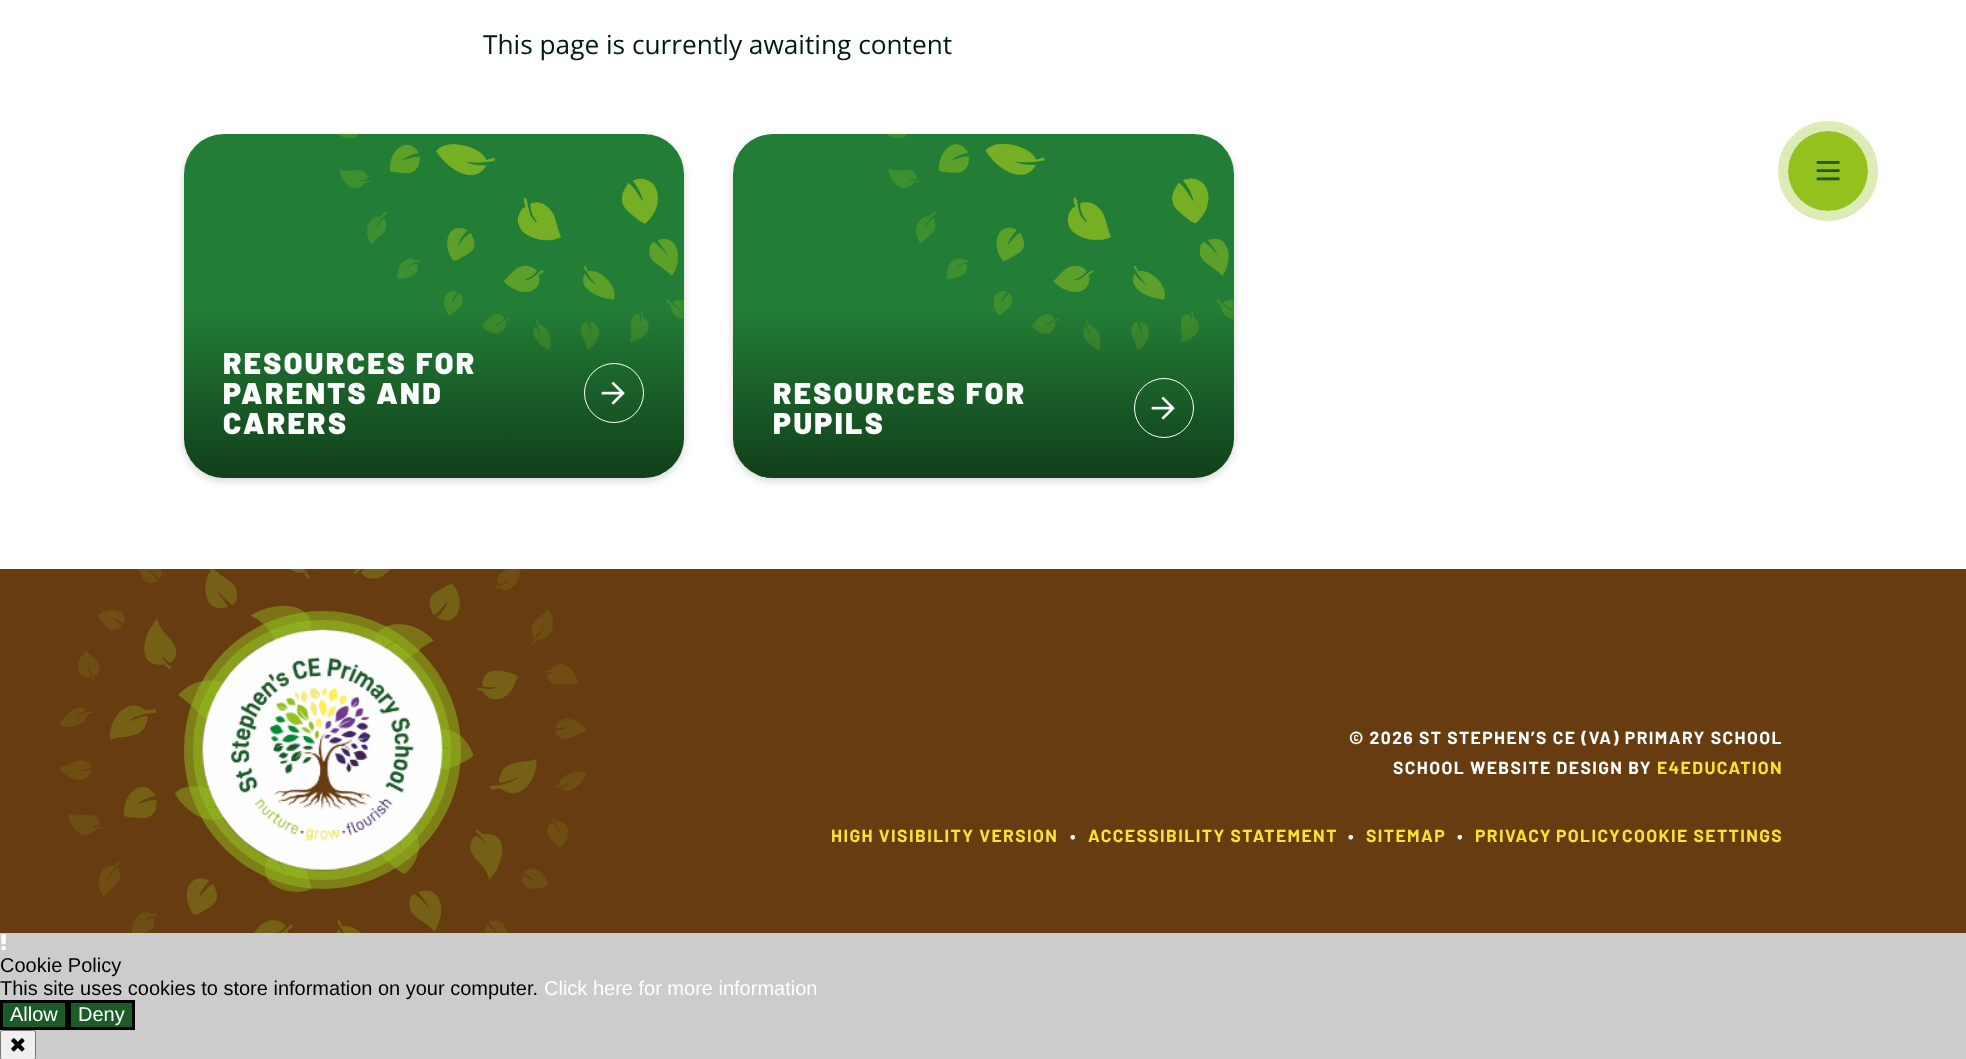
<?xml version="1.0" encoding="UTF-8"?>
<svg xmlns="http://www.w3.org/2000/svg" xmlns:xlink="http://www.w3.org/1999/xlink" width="1966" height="1059">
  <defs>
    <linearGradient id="g1" gradientUnits="userSpaceOnUse" x1="434" y1="134" x2="434" y2="478"><stop offset="0" stop-color="#000000" stop-opacity="0" /><stop offset="0.5" stop-color="#000000" stop-opacity="0" /><stop offset="1" stop-color="#000000" stop-opacity="0.5" /></linearGradient>
    <linearGradient id="g2" gradientUnits="userSpaceOnUse" x1="983" y1="134" x2="983" y2="478"><stop offset="0" stop-color="#000000" stop-opacity="0" /><stop offset="0.5" stop-color="#000000" stop-opacity="0" /><stop offset="1" stop-color="#000000" stop-opacity="0.5" /></linearGradient>
  </defs>
  <rect width="100%" height="100%" fill="#cccccc" />
  <rect width="1966" height="569" fill="#ffffff" />
  <rect x="184" y="138" width="500" height="343" rx="40" fill="#000000" fill-opacity="0.16" filter="blur(4px)" />
  <rect x="184" y="134" width="500" height="344" rx="40" fill="#227e36" />
  <image x="337" y="133" width="347" height="217" xlink:href="image1.png" />
  <rect x="184" y="134" width="500" height="344" rx="40" fill="url(#g1)" />
  <circle cx="614" cy="393" r="29.5" fill="none" stroke="#ffffff" />
  <image x="601" y="381" width="24" height="24" xlink:href="image2.png" />
  <rect x="733" y="138" width="501" height="343" rx="40" fill="#000000" fill-opacity="0.16" filter="blur(4px)" />
  <rect x="733" y="134" width="501" height="344" rx="40" fill="#227e36" />
  <image x="886" y="133" width="348" height="218" xlink:href="image3.png" />
  <rect x="733" y="134" width="501" height="344" rx="40" fill="url(#g2)" />
  <circle cx="1164" cy="408" r="29.5" fill="none" stroke="#ffffff" />
  <image x="1151" y="396" width="24" height="24" xlink:href="image4.png" />
  <circle cx="1828" cy="171" r="45" fill="none" stroke="#ddebb7" stroke-width="10" />
  <circle cx="1828" cy="171" r="40" fill="#95c11f" />
  <image x="1816" y="161" width="24" height="20" xlink:href="image5.png" />
  <rect y="569" width="1966" height="364" fill="#683c11" />
  <rect x="193.5" y="620.5" width="258" height="259" rx="129" fill="none" stroke="#7f7f18" stroke-width="19" />
  <image x="59" y="569" width="527" height="364" xlink:href="image6.png" />
  <image x="202" y="629" width="241" height="241" xlink:href="image7.png" />
  <rect x="197.5" y="624.5" width="249" height="251" rx="124.5" fill="none" stroke="#95c11f" stroke-opacity="0.5" stroke-width="9" />
  <image x="1" y="934" width="5" height="16" xlink:href="image8.png" />
  <rect x="1.5" y="1001.5" width="65" height="27" fill="#1a5b28" stroke="#000000" stroke-width="3" />
  <rect x="69.5" y="1001.5" width="64" height="27" fill="#1a5b28" stroke="#000000" stroke-width="3" />
  <rect x="0.5" y="1030.5" width="35" height="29" rx="2" fill="#efefef" stroke="#767676" />
  <image x="11" y="1038" width="14" height="14" xlink:href="image9.png" />
  <text x="483" y="54" style="font-family: Open Sans; font-size: 26.25px; fill: #001a0c">This page is currently awaiting content</text>
  <text x="223" y="374" style="font-family: Barlow; font-size: 30px; font-weight: 900; letter-spacing: 2.4px; fill: #ffffff">RESOURCES FOR</text>
  <text x="223" y="404" style="font-family: Barlow; font-size: 30px; font-weight: 900; letter-spacing: 2.4px; fill: #ffffff">PARENTS AND</text>
  <text x="223" y="434" style="font-family: Barlow; font-size: 30px; font-weight: 900; letter-spacing: 2.4px; fill: #ffffff">CARERS</text>
  <text x="773" y="404" style="font-family: Barlow; font-size: 30px; font-weight: 900; letter-spacing: 2.4px; fill: #ffffff">RESOURCES FOR</text>
  <text x="773" y="434" style="font-family: Barlow; font-size: 30px; font-weight: 900; letter-spacing: 2.4px; fill: #ffffff">PUPILS</text>
  <text x="1349" y="744" style="font-family: Barlow; font-size: 17.5px; font-weight: bold; letter-spacing: 1.4px; fill: #ffffff">© 2026 ST STEPHEN’S CE (VA) PRIMARY SCHOOL</text>
  <text x="1393" y="774" style="font-family: Barlow; font-size: 17.5px; font-weight: bold; letter-spacing: 1.4px; fill: #ffffff">SCHOOL WEBSITE DESIGN BY</text>
  <text x="1657" y="774" style="font-family: Barlow; font-size: 17.5px; font-weight: bold; letter-spacing: 1.4px; fill: #f7e432">E4EDUCATION</text>
  <text x="831" y="842" style="font-family: Barlow; font-size: 17.5px; font-weight: bold; letter-spacing: 1.4px; fill: #f7e432">HIGH VISIBILITY VERSION</text>
  <text x="1070" y="842" style="font-family: Barlow; font-size: 17.5px; font-weight: bold; letter-spacing: 1.4px; fill: #ffffff">•</text>
  <text x="1088" y="842" style="font-family: Barlow; font-size: 17.5px; font-weight: bold; letter-spacing: 1.4px; fill: #f7e432">ACCESSIBILITY STATEMENT</text>
  <text x="1348" y="842" style="font-family: Barlow; font-size: 17.5px; font-weight: bold; letter-spacing: 1.4px; fill: #ffffff">•</text>
  <text x="1366" y="842" style="font-family: Barlow; font-size: 17.5px; font-weight: bold; letter-spacing: 1.4px; fill: #f7e432">SITEMAP</text>
  <text x="1457" y="842" style="font-family: Barlow; font-size: 17.5px; font-weight: bold; letter-spacing: 1.4px; fill: #ffffff">•</text>
  <text x="1475" y="842" word-spacing="-1" style="font-family: Barlow; font-size: 17.5px; font-weight: bold; letter-spacing: 1.4px; fill: #f7e432">PRIVACY POLICY</text>
  <text x="1622" y="842" style="font-family: Barlow; font-size: 17.5px; font-weight: bold; letter-spacing: 1.4px; fill: #f7e432">COOKIE SETTINGS</text>
  <text x="0" y="972" style="font-family: Liberation Sans; font-size: 20px; fill: #000000">Cookie Policy</text>
  <text x="0" y="995" style="font-family: Liberation Sans; font-size: 20px; fill: #000000">This site uses cookies to store information on your computer.</text>
  <text x="544" y="995" style="font-family: Liberation Sans; font-size: 20px; fill: #ffffff">Click here for more information</text>
  <text x="10" y="1021" style="font-family: Liberation Sans; font-size: 20px; fill: #ffffff">Allow</text>
  <text x="78" y="1021" style="font-family: Liberation Sans; font-size: 20px; fill: #ffffff">Deny</text>
</svg>
